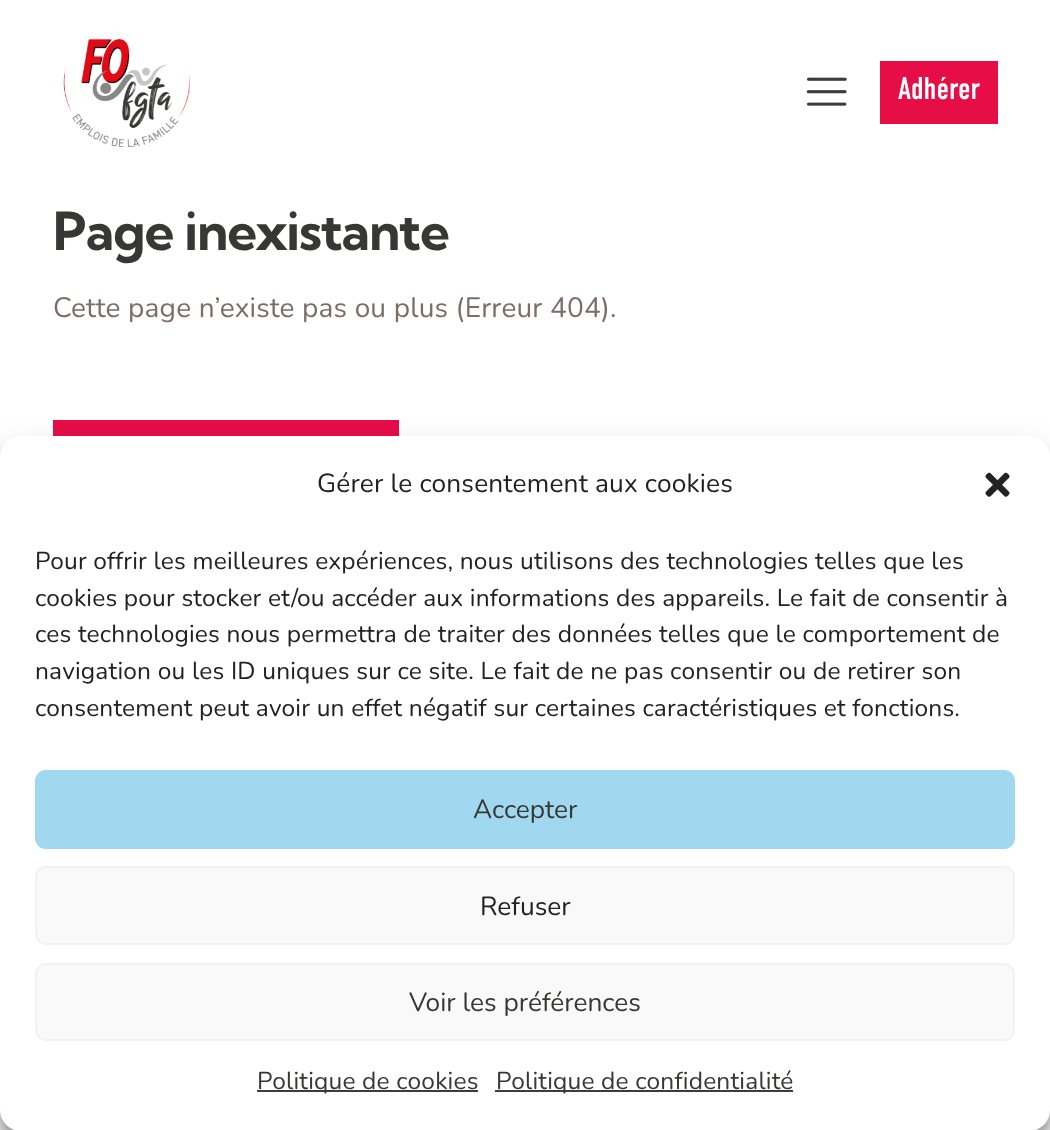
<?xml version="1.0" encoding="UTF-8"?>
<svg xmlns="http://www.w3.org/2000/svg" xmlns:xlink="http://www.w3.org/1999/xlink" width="1050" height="1130">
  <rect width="100%" height="100%" fill="#ffffff" />
  <image x="63" y="39" width="127" height="108" xlink:href="image1.png" />
  <image x="806" y="77" width="41" height="29" xlink:href="image2.png" />
  <rect x="880" y="61" width="118" height="63" fill="#e70e48" />
  <rect x="53" y="420" width="346" height="16" fill="#e70e48" />
  <rect y="1110" width="1050" height="20" fill="#f2f2f2" />
  <rect y="446" width="1050" height="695" rx="21" fill="#000000" fill-opacity="0.23" filter="blur(5px)" />
  <rect y="453" width="1050" height="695" rx="21" fill="#000000" fill-opacity="0.19" filter="blur(17.5px)" />
  <rect y="436" width="1050" height="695" rx="21" fill="#ffffff" />
  <image x="985" y="472" width="25" height="25" xlink:href="image3.png" />
  <rect x="36" y="771" width="978" height="77" rx="10" fill="#9fd8ef" stroke="#9fd8ef" stroke-width="2" />
  <rect x="36" y="867" width="978" height="77" rx="10" fill="#f9f9f9" stroke="#f2f2f2" stroke-width="2" />
  <rect x="36" y="964" width="978" height="76" rx="10" fill="#f9f9f9" stroke="#f2f2f2" stroke-width="2" />
  <rect x="257" y="1090" width="221" height="2" fill="#3c3c3b" />
  <rect x="495" y="1090" width="298" height="2" fill="#3c3c3b" />
  <text x="898" y="99" style="font-family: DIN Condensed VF; font-size: 31.5px; fill: #ffffff">Adhérer</text>
  <text x="53" y="250" style="font-family: Kumbh Sans; font-size: 52.5px; font-weight: bold; letter-spacing: -1px; fill: #373736">Page inexistante</text>
  <text x="53" y="317" style="font-family: Nunito; font-size: 28px; letter-spacing: 0.18px; fill: #7c6d66">Cette page n’existe pas ou plus (Erreur 404).</text>
  <text x="317" y="492" style="font-family: Nunito; font-size: 26.25px; letter-spacing: 0.18px; fill: #222222">Gérer le consentement aux cookies</text>
  <text x="35" y="569" style="font-family: Nunito; font-size: 24.5px; letter-spacing: 0.18px; fill: #222222">Pour offrir les meilleures expériences, nous utilisons des technologies telles que les</text>
  <text x="35" y="606" style="font-family: Nunito; font-size: 24.5px; letter-spacing: 0.18px; fill: #222222">cookies pour stocker et/ou accéder aux informations des appareils. Le fait de consentir à</text>
  <text x="35" y="642" style="font-family: Nunito; font-size: 24.5px; letter-spacing: 0.18px; fill: #222222">ces technologies nous permettra de traiter des données telles que le comportement de</text>
  <text x="35" y="679" style="font-family: Nunito; font-size: 24.5px; letter-spacing: 0.18px; fill: #222222">navigation ou les ID uniques sur ce site. Le fait de ne pas consentir ou de retirer son</text>
  <text x="35" y="716" style="font-family: Nunito; font-size: 24.5px; letter-spacing: 0.18px; fill: #222222">consentement peut avoir un effet négatif sur certaines caractéristiques et fonctions.</text>
  <text x="473" y="818" style="font-family: Nunito; font-size: 26.25px; fill: #373736">Accepter</text>
  <text x="480" y="915" style="font-family: Nunito; font-size: 26.25px; fill: #222222">Refuser</text>
  <text x="409" y="1011" style="font-family: Nunito; font-size: 26.25px; fill: #373736">Voir les préférences</text>
  <text x="257" y="1089" style="font-family: Nunito; font-size: 24.5px; letter-spacing: 0.18px; fill: #373736">Politique de cookies</text>
  <text x="496" y="1089" style="font-family: Nunito; font-size: 24.5px; letter-spacing: 0.18px; fill: #373736">Politique de confidentialité</text>
</svg>
